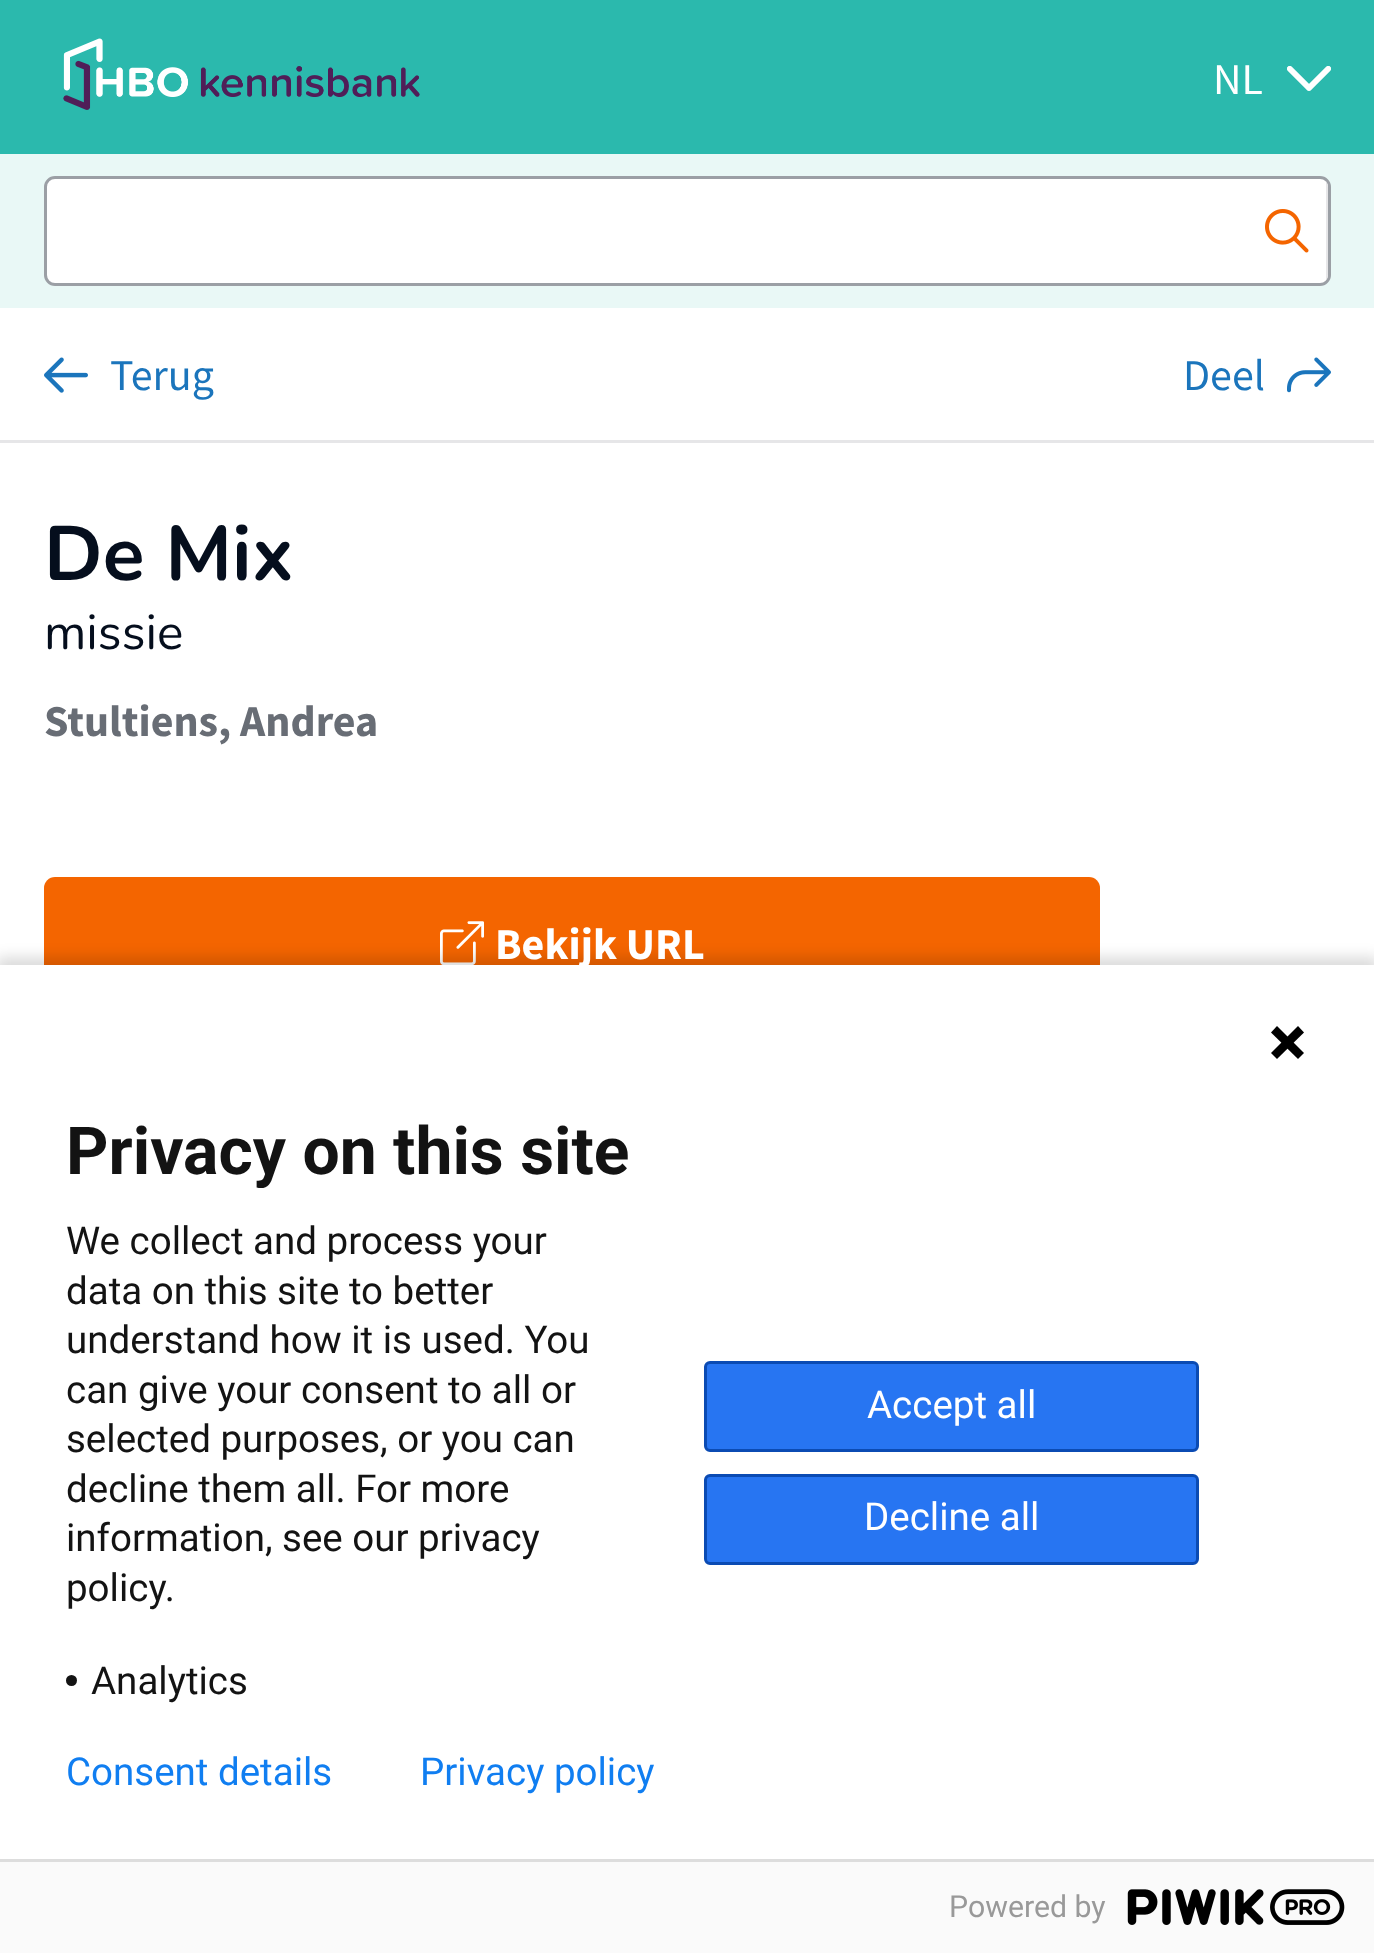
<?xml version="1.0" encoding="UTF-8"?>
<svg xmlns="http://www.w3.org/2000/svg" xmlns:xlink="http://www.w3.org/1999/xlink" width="1374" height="1953">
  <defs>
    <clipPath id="clip1"><rect x="47" y="179" width="1281" height="104" rx="8" /></clipPath>
  </defs>
  <rect width="100%" height="100%" fill="#ffffff" />
  <rect width="1374" height="154" fill="#2bb9ad" />
  <image x="63" y="38" width="357" height="72" xlink:href="image1.png" />
  <image x="1287" y="66" width="44" height="25" xlink:href="image2.png" />
  <image x="1287" y="66" width="44" height="25" xlink:href="image3.png" />
  <rect y="154" width="1374" height="154" fill="#e9f8f6" />
  <rect x="45.5" y="177.5" width="1284" height="107" rx="9.5" fill="#ffffff" stroke="#9b9fa5" stroke-width="3" />
  <g clip-path="url(#clip1)">
    <rect x="1326" y="179" width="2" height="104" fill="#e6e6e8" />
  </g>
  <image x="1265" y="209" width="44" height="44" xlink:href="image4.png" />
  <rect y="440" width="1374" height="3" fill="#e6e6e8" />
  <image x="44" y="357" width="44" height="36" xlink:href="image5.png" />
  <image x="1287" y="357" width="44" height="36" xlink:href="image6.png" />
  <rect x="44" y="877" width="1056" height="132" rx="11" fill="#f46500" />
  <image x="440" y="921" width="44" height="44" xlink:href="image7.png" />
  <rect x="-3" y="957" width="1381" height="996" fill="#000000" fill-opacity="0.14" filter="blur(7px)" />
  <rect y="965" width="1374" height="894" fill="#ffffff" />
  <path d="M 1271 1032.5 l 6 -6.5 l 27 27 l -6 6 l -27 -26.5" fill="#000000" />
  <path d="M 1298 1026 l 6 6.5 l -27 26.5 l -6 -6 l 27 -27" fill="#000000" />
  <circle cx="71.5" cy="1680.5" r="5.5" fill="#131313" />
  <rect x="705.5" y="1362.5" width="492" height="88" rx="4.5" fill="#2775f2" stroke="#0b4bb3" stroke-width="3" />
  <rect x="705.5" y="1475.5" width="492" height="88" rx="4.5" fill="#2775f2" stroke="#0b4bb3" stroke-width="3" />
  <rect y="1862" width="1374" height="91" fill="#fafafa" />
  <rect y="1859" width="1374" height="3" fill="#dddddd" />
  <image x="1127" y="1889" width="218" height="36" xlink:href="image8.png" />
  <text x="1213" y="94" style="font-family: Source Sans Pro; font-size: 44px; fill: #ffffff">NL</text>
  <text x="110" y="390" style="font-family: Source Sans Pro; font-size: 44px; fill: #1b75bc">Terug</text>
  <text x="1183" y="390" style="font-family: Source Sans Pro; font-size: 44px; fill: #1b75bc">Deel</text>
  <text x="44" y="580" style="font-family: Nunito; font-size: 77px; font-weight: 200; fill: #050e1d">De Mix</text>
  <text x="44" y="649" style="font-family: 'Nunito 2'; font-size: 49.5px; font-weight: 200; fill: #050e1d">missie</text>
  <text x="44" y="736" style="font-family: Source Sans Pro; font-size: 44px; font-weight: bold; fill: #686d75">Stultiens, Andrea</text>
  <text x="495" y="959" style="font-family: Source Sans Pro; font-size: 44px; font-weight: bold; fill: #ffffff">Bekijk URL</text>
  <text x="66" y="1174" style="font-family: Roboto; font-size: 66px; font-weight: bold; fill: #131313">Privacy on this site</text>
  <text x="66" y="1254" style="font-family: Roboto; font-size: 38.5px; fill: #131313">We collect and process your</text>
  <text x="66" y="1304" style="font-family: Roboto; font-size: 38.5px; fill: #131313">data on this site to better</text>
  <text x="66" y="1353" style="font-family: Roboto; font-size: 38.5px; fill: #131313">understand how it is used. You</text>
  <text x="66" y="1403" style="font-family: Roboto; font-size: 38.5px; fill: #131313">can give your consent to all or</text>
  <text x="66" y="1452" style="font-family: Roboto; font-size: 38.5px; fill: #131313">selected purposes, or you can</text>
  <text x="66" y="1502" style="font-family: Roboto; font-size: 38.5px; fill: #131313">decline them all. For more</text>
  <text x="66" y="1551" style="font-family: Roboto; font-size: 38.5px; fill: #131313">information, see our privacy</text>
  <text x="66" y="1601" style="font-family: Roboto; font-size: 38.5px; fill: #131313">policy.</text>
  <text x="91" y="1694" style="font-family: Roboto; font-size: 38.5px; fill: #131313">Analytics</text>
  <text x="867" y="1418" style="font-family: Roboto; font-size: 38.5px; fill: #ffffff">Accept all</text>
  <text x="864" y="1530" style="font-family: Roboto; font-size: 38.5px; fill: #ffffff">Decline all</text>
  <text x="66" y="1785" style="font-family: Roboto; font-size: 38.5px; fill: #107ef1">Consent details</text>
  <text x="420" y="1785" style="font-family: Roboto; font-size: 38.5px; fill: #107ef1">Privacy policy</text>
  <text x="949" y="1917" style="font-family: Roboto; font-size: 30.25px; fill: #999999">Powered by</text>
</svg>
